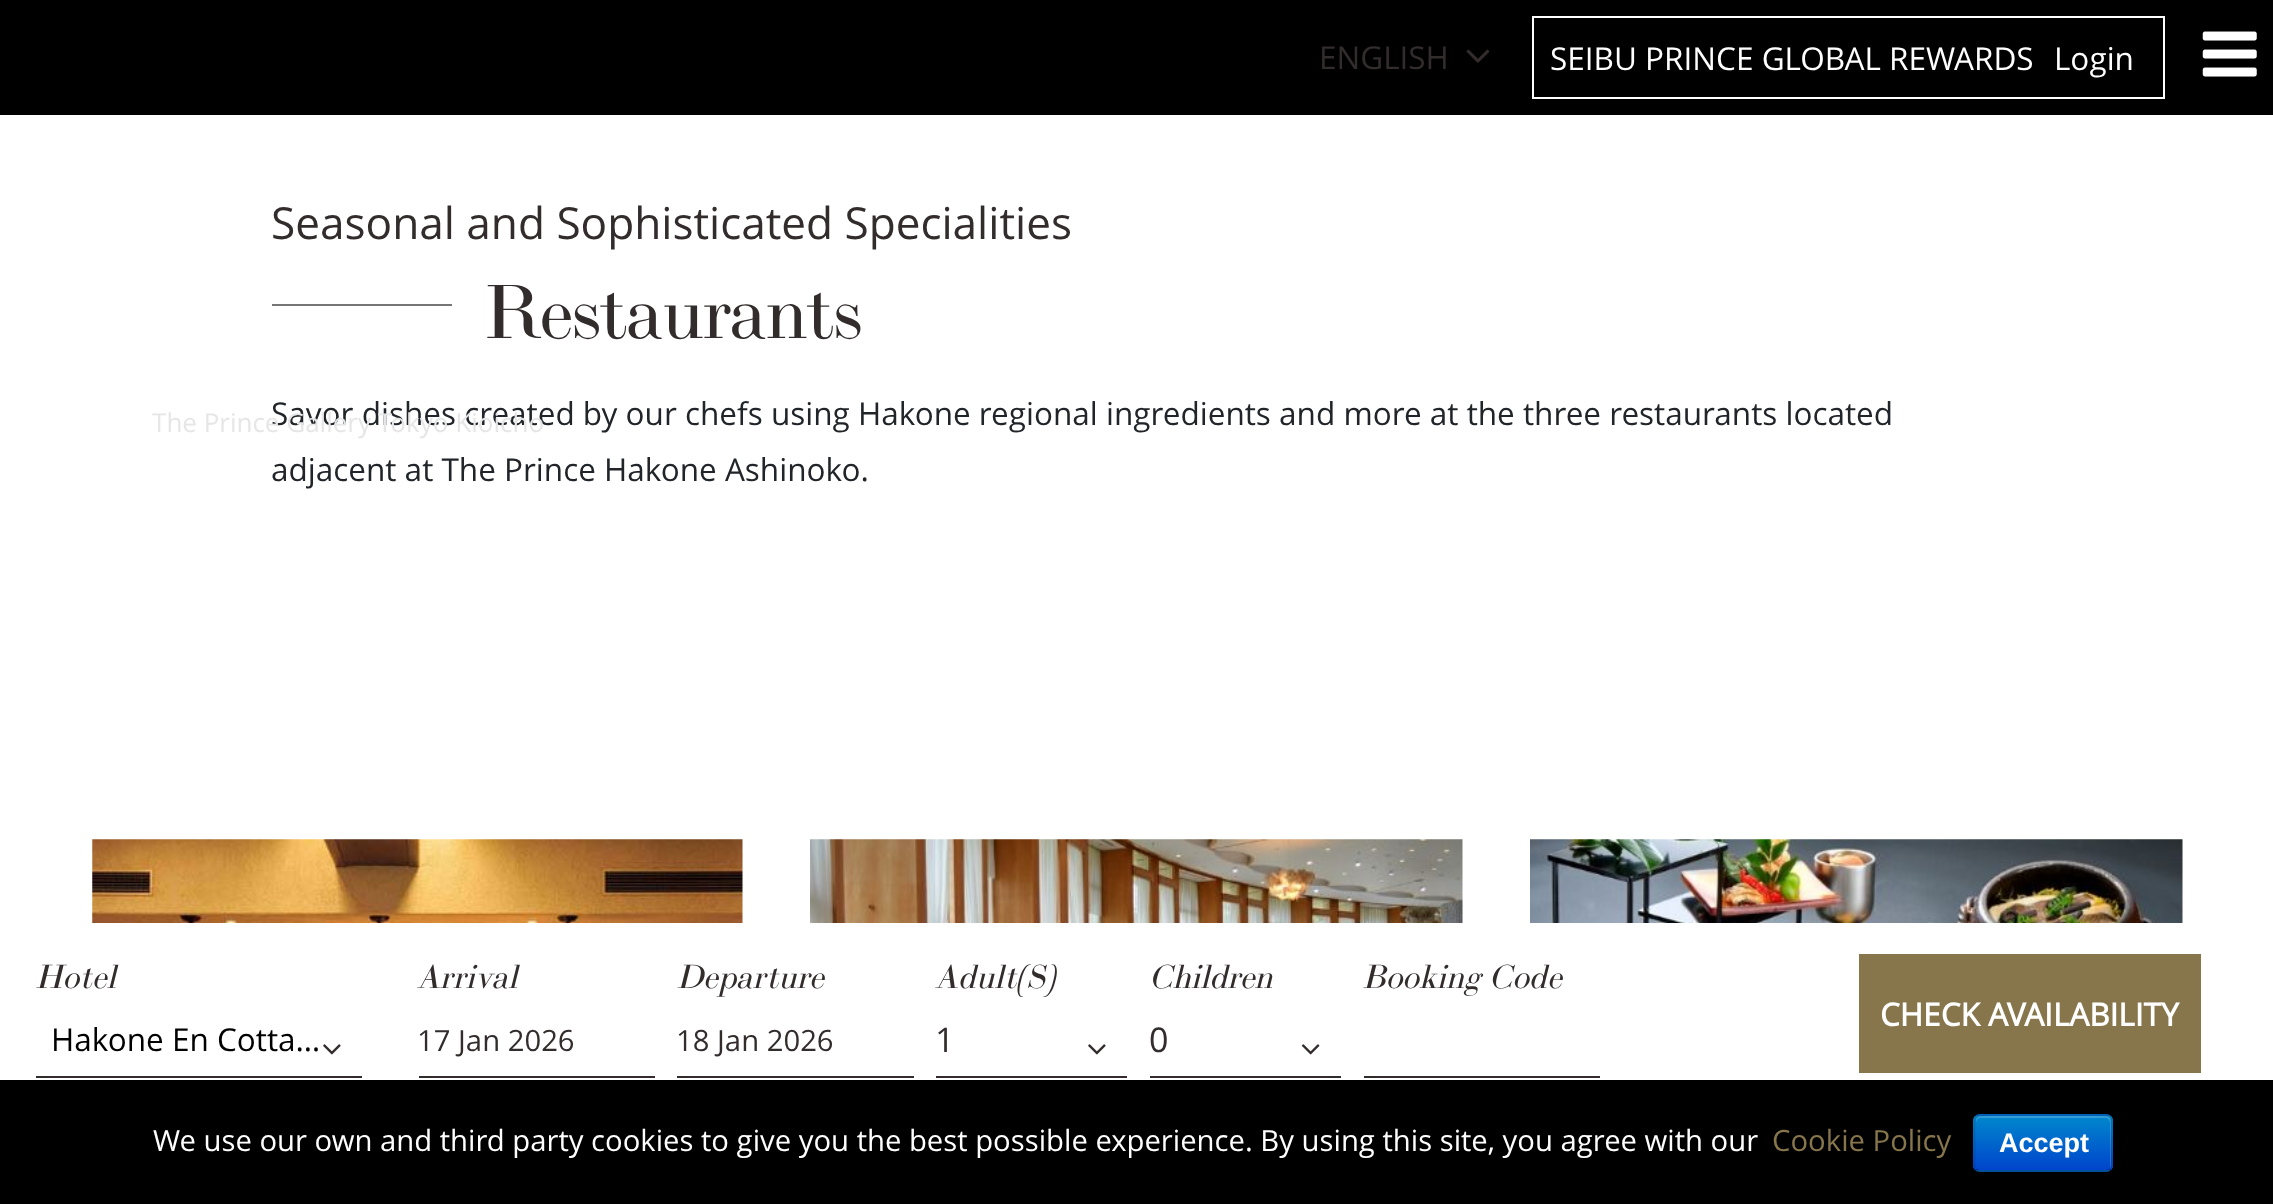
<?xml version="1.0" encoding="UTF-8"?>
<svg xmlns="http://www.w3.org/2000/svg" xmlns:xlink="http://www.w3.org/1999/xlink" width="2273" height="1204">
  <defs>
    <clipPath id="clip1"><rect x="1973" y="1114" width="140" height="58" rx="7" /></clipPath>
    <linearGradient id="g1" gradientUnits="userSpaceOnUse" x1="2043" y1="1116" x2="2043" y2="1170"><stop offset="0" stop-color="#0088cc" /><stop offset="1" stop-color="#0044cc" /></linearGradient>
  </defs>
  <rect width="100%" height="100%" fill="#ffffff" />
  <rect width="2273" height="115" fill="#000000" />
  <image x="1466" y="49" width="24" height="14" xlink:href="image1.png" />
  <rect x="1533" y="17" width="631" height="81" fill="none" stroke="#ffffff" stroke-width="2" />
  <image x="2202" y="31" width="55" height="46" xlink:href="image2.png" />
  <rect x="272" y="304" width="180" height="2" fill="#767676" />
  <rect x="36" y="1076" width="326" height="2" fill="#322d2c" />
  <image x="323" y="1044" width="18" height="11" xlink:href="image3.png" />
  <rect x="419" y="1076" width="236" height="2" fill="#322d2c" />
  <rect x="677" y="1076" width="237" height="2" fill="#322d2c" />
  <rect x="936" y="1076" width="191" height="2" fill="#322d2c" />
  <image x="1088" y="1044" width="18" height="11" xlink:href="image3.png" />
  <rect x="1150" y="1076" width="191" height="2" fill="#322d2c" />
  <image x="1301" y="1044" width="19" height="11" xlink:href="image4.png" />
  <rect x="1364" y="1076" width="236" height="2" fill="#322d2c" />
  <rect x="1859" y="954" width="342" height="119" fill="#87764c" />
  <image x="92" y="839" width="651" height="84" xlink:href="image5.png" />
  <image x="810" y="839" width="653" height="84" xlink:href="image6.png" />
  <image x="1530" y="839" width="653" height="84" xlink:href="image7.png" />
  <rect y="1080" width="2273" height="124" fill="#000000" />
  <rect x="1973" y="1114" width="140" height="58" rx="7" fill="#006dcc" />
  <g clip-path="url(#clip1)">
    <rect x="1973" y="1116" width="140" height="54" fill="url(#g1)" />
  </g>
  <path d="M 1980 1118 h 126 c 2 0 4 2 4 5 v 45 c 1 -1 1 -2 1 -3 v -44 c 0 -3 -2 -5 -5 -5 h -125 c -3 0 -5 2 -5 5 v 2 c 0 -3 2 -5 4 -5 z" fill="#ffffff" fill-opacity="0.2" />
  <path d="M 2110 1169.5 l -3.5 1.5 h -127 l -3.5 -1.5" fill="none" stroke="#000000" stroke-opacity="0.25" stroke-width="2.2" />
  <path d="M 1976 1169.5 c -3 -3 -1.5 -8.5 -1.5 -11.5 v -15 c 0 -32 -5.5 -28 26.5 -28 h 84 c 32 0 26.5 -4 26.5 28 v 15 c 0 3 1.5 8.5 -1.5 11.5" fill="none" stroke="#000000" stroke-opacity="0.1" stroke-width="2.2" />
  <text x="1319" y="69" style="font-family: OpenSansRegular; font-size: 31.5px; fill: #322c2c">ENGLISH</text>
  <text x="1550" y="70" style="font-family: OpenSansRegular; font-size: 31.5px; fill: #ffffff">SEIBU PRINCE GLOBAL REWARDS</text>
  <text x="2054" y="70" style="font-family: OpenSansRegular; font-size: 31.5px; fill: #ffffff">Login</text>
  <text x="271" y="239" style="font-family: OpenSansRegular; font-size: 44.1px; fill: #322c2c">Seasonal and Sophisticated Specialities</text>
  <text x="484" y="338" style="font-family: 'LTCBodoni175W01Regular'; font-size: 75.5px; letter-spacing: -1.5px; fill: #322c2c">Restaurants</text>
  <text x="271" y="425" style="font-family: OpenSansRegular; font-size: 31.5px; fill: #212529">Savor dishes created by our chefs using Hakone regional ingredients and more at the three restaurants located</text>
  <text x="271" y="481" style="font-family: OpenSansRegular; font-size: 31.5px; fill: #212529">adjacent at The Prince Hakone Ashinoko.</text>
  <text x="152" y="432" style="font-family: OpenSansRegular; font-size: 26px; fill: #e6e6e7">The Prince Gallery Tokyo Kioicho</text>
  <text x="51" y="1051" style="font-family: OpenSansRegular; font-size: 31.5px; fill: #000000">Hakone En Cotta…</text>
  <text x="35" y="988" style="font-family: 'LTCBodoni175W01Regular'; font-size: 33px; font-style: italic; fill: #322c2c">Hotel</text>
  <text x="417" y="988" style="font-family: 'LTCBodoni175W01Regular'; font-size: 33px; font-style: italic; fill: #322c2c">Arrival</text>
  <text x="417" y="1051" style="font-family: OpenSansRegular; font-size: 29.25px; fill: #322c2c">17 Jan 2026</text>
  <text x="676" y="988" style="font-family: 'LTCBodoni175W01Regular'; font-size: 33px; font-style: italic; fill: #322c2c">Departure</text>
  <text x="676" y="1051" style="font-family: OpenSansRegular; font-size: 29.25px; fill: #322c2c">18 Jan 2026</text>
  <text x="935" y="988" style="font-family: 'LTCBodoni175W01Regular'; font-size: 33px; font-style: italic; fill: #322c2c">Adult(S)</text>
  <text x="935" y="1052" style="font-family: OpenSansRegular; font-size: 34px; fill: #322c2c">1</text>
  <text x="1149" y="988" style="font-family: 'LTCBodoni175W01Regular'; font-size: 33px; font-style: italic; fill: #322c2c">Children</text>
  <text x="1149" y="1052" style="font-family: OpenSansRegular; font-size: 34px; fill: #322c2c">0</text>
  <text x="1362" y="988" style="font-family: 'LTCBodoni175W01Regular'; font-size: 33px; font-style: italic; fill: #322c2c">Booking Code</text>
  <text x="1880" y="1026" style="font-family: OpenSansRegular; font-size: 31.5px; font-weight: bold; fill: #ffffff">CHECK AVAILABILITY</text>
  <text x="153" y="1151" style="font-family: OpenSansRegular; font-size: 29.25px; fill: #ffffff">We use our own and third party cookies to give you the best possible experience. By using this site, you agree with our</text>
  <text x="1772" y="1151" style="font-family: OpenSansRegular; font-size: 29.25px; fill: #87764c">Cookie Policy</text>
  <text x="1999" y="1152" style="font-family: Liberation Sans; font-size: 27px; font-weight: bold; fill: #ffffff">Accept</text>
</svg>
